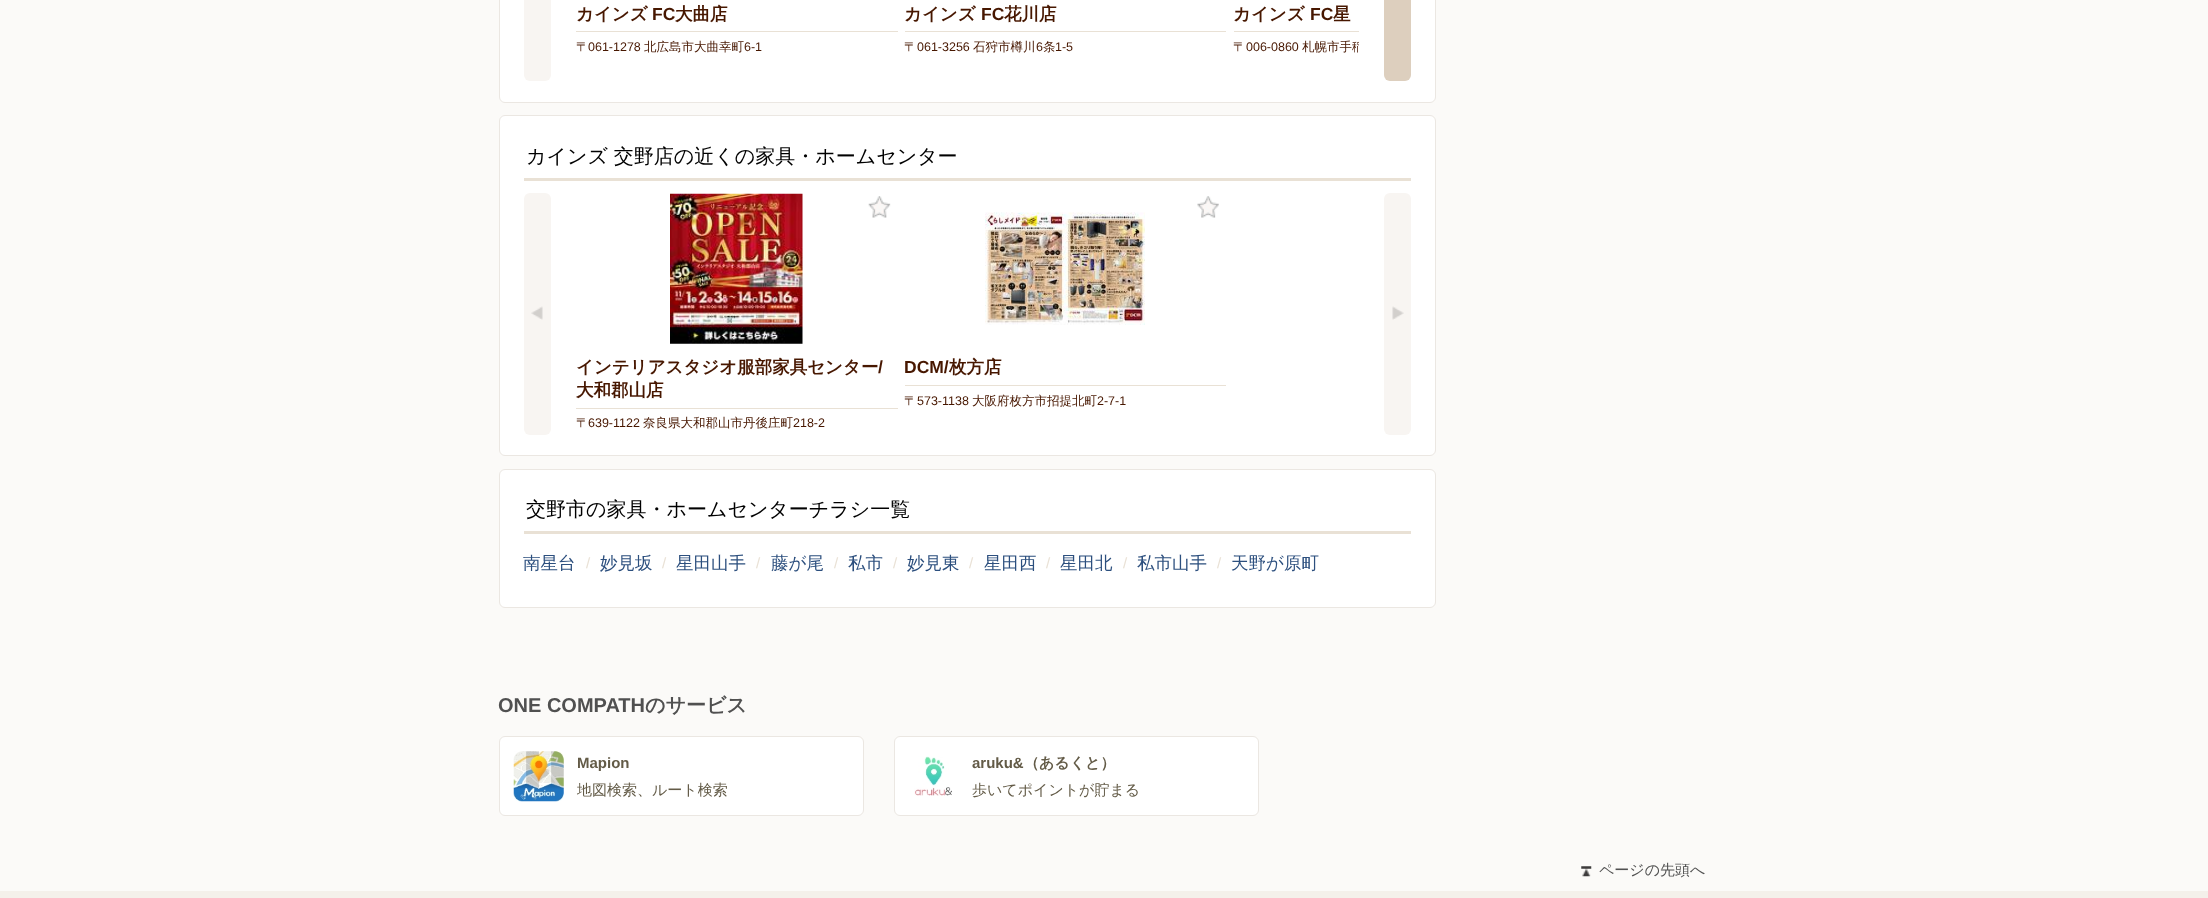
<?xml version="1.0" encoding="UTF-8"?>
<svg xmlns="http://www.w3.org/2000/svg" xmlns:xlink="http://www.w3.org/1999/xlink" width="2208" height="898">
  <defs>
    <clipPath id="clip1"><rect x="576" width="783" height="81" /></clipPath>
  </defs>
  <rect width="100%" height="100%" fill="#fbfaf8" />
  <rect x="499.5" y="-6.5" width="936" height="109" rx="5.5" fill="#ffffff" stroke="#ebe7e2" />
  <rect x="524" y="-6" width="27" height="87" rx="6" fill="#f8f5f2" />
  <rect x="1384" y="-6" width="27" height="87" rx="6" fill="#ddcfbe" />
  <rect x="576" y="31" width="322" height="1" fill="#e9e1d5" />
  <rect x="905" y="31" width="321" height="1" fill="#e9e1d5" />
  <rect x="1234" y="31" width="125" height="1" fill="#e9e1d5" />
  <rect x="499.5" y="115.5" width="936" height="340" rx="5.5" fill="#ffffff" stroke="#ebe7e2" />
  <rect x="524" y="178" width="887" height="3" fill="#e9e1d5" />
  <rect x="524" y="193" width="27" height="242" rx="6" fill="#f8f5f2" />
  <image x="531" y="306" width="12" height="14" xlink:href="image1.png" />
  <rect x="1384" y="193" width="27" height="242" rx="6" fill="#f8f5f2" />
  <image x="1392" y="306" width="12" height="14" xlink:href="image2.png" />
  <image x="868" y="196" width="23" height="22" xlink:href="image3.png" />
  <image x="670" y="193" width="133" height="151" xlink:href="image4.png" />
  <rect x="576" y="408" width="322" height="1" fill="#e9e1d5" />
  <image x="1197" y="196" width="22" height="22" xlink:href="image5.png" />
  <image x="985" y="212" width="160" height="113" xlink:href="image6.png" />
  <rect x="905" y="385" width="321" height="1" fill="#e9e1d5" />
  <rect x="499.5" y="469.5" width="936" height="138" rx="5.5" fill="#ffffff" stroke="#ebe7e2" />
  <rect x="524" y="531" width="887" height="3" fill="#e9e1d5" />
  <rect x="499.5" y="736.5" width="364" height="79" rx="5.5" fill="#ffffff" stroke="#ebe7e2" />
  <image x="513" y="751" width="51" height="51" xlink:href="image7.png" />
  <rect x="894.5" y="736.5" width="364" height="79" rx="5.5" fill="#ffffff" stroke="#ebe7e2" />
  <image x="914" y="756" width="38" height="40" xlink:href="image8.png" />
  <image x="1581" y="866" width="11" height="11" xlink:href="image9.png" />
  <rect y="891" width="2208" height="7" fill="#f4f0ea" />
  <text x="576" y="20" style="font-family: WenQuanYi Zen Hei; font-size: 17.5px; font-weight: bold; fill: #471700">カインズ</text>
  <text x="652" y="20" style="font-family: Liberation Sans; font-size: 17.5px; font-weight: bold; fill: #471700">FC</text>
  <text x="675" y="20" style="font-family: WenQuanYi Zen Hei; font-size: 17.5px; font-weight: bold; fill: #471700">大曲店</text>
  <text x="576" y="51" style="font-family: WenQuanYi Zen Hei; font-size: 12.5px; font-weight: 500; fill: #471700">〒</text>
  <text x="588" y="51" style="font-family: Liberation Sans; font-size: 12.5px; fill: #471700">061-1278</text>
  <text x="644" y="51" style="font-family: WenQuanYi Zen Hei; font-size: 12.5px; font-weight: 500; fill: #471700">北広島市大曲幸町</text>
  <text x="744" y="51" style="font-family: Liberation Sans; font-size: 12.5px; fill: #471700">6-1</text>
  <text x="904" y="20" style="font-family: WenQuanYi Zen Hei; font-size: 17.5px; font-weight: bold; fill: #471700">カインズ</text>
  <text x="981" y="20" style="font-family: Liberation Sans; font-size: 17.5px; font-weight: bold; fill: #471700">FC</text>
  <text x="1004" y="20" style="font-family: WenQuanYi Zen Hei; font-size: 17.5px; font-weight: bold; fill: #471700">花川店</text>
  <text x="904" y="51" style="font-family: WenQuanYi Zen Hei; font-size: 12.5px; font-weight: 500; fill: #471700">〒</text>
  <text x="917" y="51" style="font-family: Liberation Sans; font-size: 12.5px; fill: #471700">061-3256</text>
  <text x="973" y="51" style="font-family: WenQuanYi Zen Hei; font-size: 12.5px; font-weight: 500; fill: #471700">石狩市樽川</text>
  <text x="1036" y="51" style="font-family: Liberation Sans; font-size: 12.5px; fill: #471700">6</text>
  <text x="1043" y="51" style="font-family: WenQuanYi Zen Hei; font-size: 12.5px; font-weight: 500; fill: #471700">条</text>
  <text x="1055" y="51" style="font-family: Liberation Sans; font-size: 12.5px; fill: #471700">1-5</text>
  <text x="1233" y="20" style="font-family: WenQuanYi Zen Hei; font-size: 17.5px; font-weight: bold; fill: #471700">カインズ</text>
  <text x="1310" y="20" style="font-family: Liberation Sans; font-size: 17.5px; font-weight: bold; fill: #471700">FC</text>
  <text x="1333" y="20" style="font-family: WenQuanYi Zen Hei; font-size: 17.5px; font-weight: bold; fill: #471700">星</text>
  <text x="1233" y="51" style="font-family: WenQuanYi Zen Hei; font-size: 12.5px; font-weight: 500; fill: #471700">〒</text>
  <text x="1246" y="51" style="font-family: Liberation Sans; font-size: 12.5px; fill: #471700">006-0860</text>
  <g clip-path="url(#clip1)">
    <text x="1302" y="51" style="font-family: WenQuanYi Zen Hei; font-size: 12.5px; font-weight: 500; fill: #471700">札幌市手稲</text>
  </g>
  <text x="526" y="163" style="font-family: WenQuanYi Zen Hei; font-size: 20px; font-weight: 500; fill: #000000">カインズ 交野店の近くの家具・ホームセンター</text>
  <text x="576" y="373" style="font-family: WenQuanYi Zen Hei; font-size: 17.5px; font-weight: bold; fill: #471700">インテリアスタジオ服部家具センター</text>
  <text x="878" y="373" style="font-family: Liberation Sans; font-size: 17.5px; font-weight: bold; fill: #471700">/</text>
  <text x="576" y="396" style="font-family: WenQuanYi Zen Hei; font-size: 17.5px; font-weight: bold; fill: #471700">大和郡山店</text>
  <text x="576" y="427" style="font-family: WenQuanYi Zen Hei; font-size: 12.5px; font-weight: 500; fill: #471700">〒</text>
  <text x="588" y="427" style="font-family: Liberation Sans; font-size: 12.5px; fill: #471700">639-1122</text>
  <text x="643" y="427" style="font-family: WenQuanYi Zen Hei; font-size: 12.5px; font-weight: 500; fill: #471700">奈良県大和郡山市丹後庄町</text>
  <text x="793" y="427" style="font-family: Liberation Sans; font-size: 12.5px; fill: #471700">218-2</text>
  <text x="904" y="373" style="font-family: Liberation Sans; font-size: 17.5px; font-weight: bold; fill: #471700">DCM/</text>
  <text x="949" y="373" style="font-family: WenQuanYi Zen Hei; font-size: 17.5px; font-weight: bold; fill: #471700">枚方店</text>
  <text x="904" y="405" style="font-family: WenQuanYi Zen Hei; font-size: 12.5px; font-weight: 500; fill: #471700">〒</text>
  <text x="917" y="405" style="font-family: Liberation Sans; font-size: 12.5px; fill: #471700">573-1138</text>
  <text x="972" y="405" style="font-family: WenQuanYi Zen Hei; font-size: 12.5px; font-weight: 500; fill: #471700">大阪府枚方市招提北町</text>
  <text x="1097" y="405" style="font-family: Liberation Sans; font-size: 12.5px; fill: #471700">2-7-1</text>
  <text x="526" y="516" style="font-family: WenQuanYi Zen Hei; font-size: 20px; font-weight: 500; fill: #000000">交野市の家具・ホームセンターチラシ一覧</text>
  <text x="523" y="569" style="font-family: WenQuanYi Zen Hei; font-size: 17.5px; font-weight: 500; fill: #2c4f7e">南星台</text>
  <text x="586" y="568" style="font-family: Liberation Sans; font-size: 15px; fill: #e9e1d5">/</text>
  <text x="600" y="569" style="font-family: WenQuanYi Zen Hei; font-size: 17.5px; font-weight: 500; fill: #2c4f7e">妙見坂</text>
  <text x="662" y="568" style="font-family: Liberation Sans; font-size: 15px; fill: #e9e1d5">/</text>
  <text x="676" y="569" style="font-family: WenQuanYi Zen Hei; font-size: 17.5px; font-weight: 500; fill: #2c4f7e">星田山手</text>
  <text x="756" y="568" style="font-family: Liberation Sans; font-size: 15px; fill: #e9e1d5">/</text>
  <text x="771" y="569" style="font-family: WenQuanYi Zen Hei; font-size: 17.5px; font-weight: 500; fill: #2c4f7e">藤が尾</text>
  <text x="834" y="568" style="font-family: Liberation Sans; font-size: 15px; fill: #e9e1d5">/</text>
  <text x="848" y="569" style="font-family: WenQuanYi Zen Hei; font-size: 17.5px; font-weight: 500; fill: #2c4f7e">私市</text>
  <text x="893" y="568" style="font-family: Liberation Sans; font-size: 15px; fill: #e9e1d5">/</text>
  <text x="907" y="569" style="font-family: WenQuanYi Zen Hei; font-size: 17.5px; font-weight: 500; fill: #2c4f7e">妙見東</text>
  <text x="969" y="568" style="font-family: Liberation Sans; font-size: 15px; fill: #e9e1d5">/</text>
  <text x="984" y="569" style="font-family: WenQuanYi Zen Hei; font-size: 17.5px; font-weight: 500; fill: #2c4f7e">星田西</text>
  <text x="1046" y="568" style="font-family: Liberation Sans; font-size: 15px; fill: #e9e1d5">/</text>
  <text x="1060" y="569" style="font-family: WenQuanYi Zen Hei; font-size: 17.5px; font-weight: 500; fill: #2c4f7e">星田北</text>
  <text x="1123" y="568" style="font-family: Liberation Sans; font-size: 15px; fill: #e9e1d5">/</text>
  <text x="1137" y="569" style="font-family: WenQuanYi Zen Hei; font-size: 17.5px; font-weight: 500; fill: #2c4f7e">私市山手</text>
  <text x="1217" y="568" style="font-family: Liberation Sans; font-size: 15px; fill: #e9e1d5">/</text>
  <text x="1231" y="569" style="font-family: WenQuanYi Zen Hei; font-size: 17.5px; font-weight: 500; fill: #2c4f7e">天野が原町</text>
  <text x="498" y="712" style="font-family: Liberation Sans; font-size: 20px; font-weight: bold; fill: #505050">ONE COMPATH</text>
  <text x="645" y="712" style="font-family: WenQuanYi Zen Hei; font-size: 20px; font-weight: bold; fill: #505050">のサービス</text>
  <text x="577" y="768" style="font-family: Liberation Sans; font-size: 15px; font-weight: bold; fill: #635b47">Mapion</text>
  <text x="577" y="795" style="font-family: WenQuanYi Zen Hei; font-size: 15px; font-weight: 500; fill: #635b47">地図検索、ルート検索</text>
  <text x="972" y="768" style="font-family: Liberation Sans; font-size: 15px; font-weight: bold; fill: #635b47">aruku&amp;</text>
  <text x="1024" y="768" style="font-family: WenQuanYi Zen Hei; font-size: 15px; font-weight: bold; fill: #635b47">（あるくと）</text>
  <text x="972" y="795" style="font-family: WenQuanYi Zen Hei; font-size: 15px; font-weight: 500; fill: #635b47">歩いてポイントが貯まる</text>
  <text x="1599" y="875" style="font-family: WenQuanYi Zen Hei; font-size: 15px; font-weight: 500; fill: #505050">ページの先頭へ</text>
</svg>
